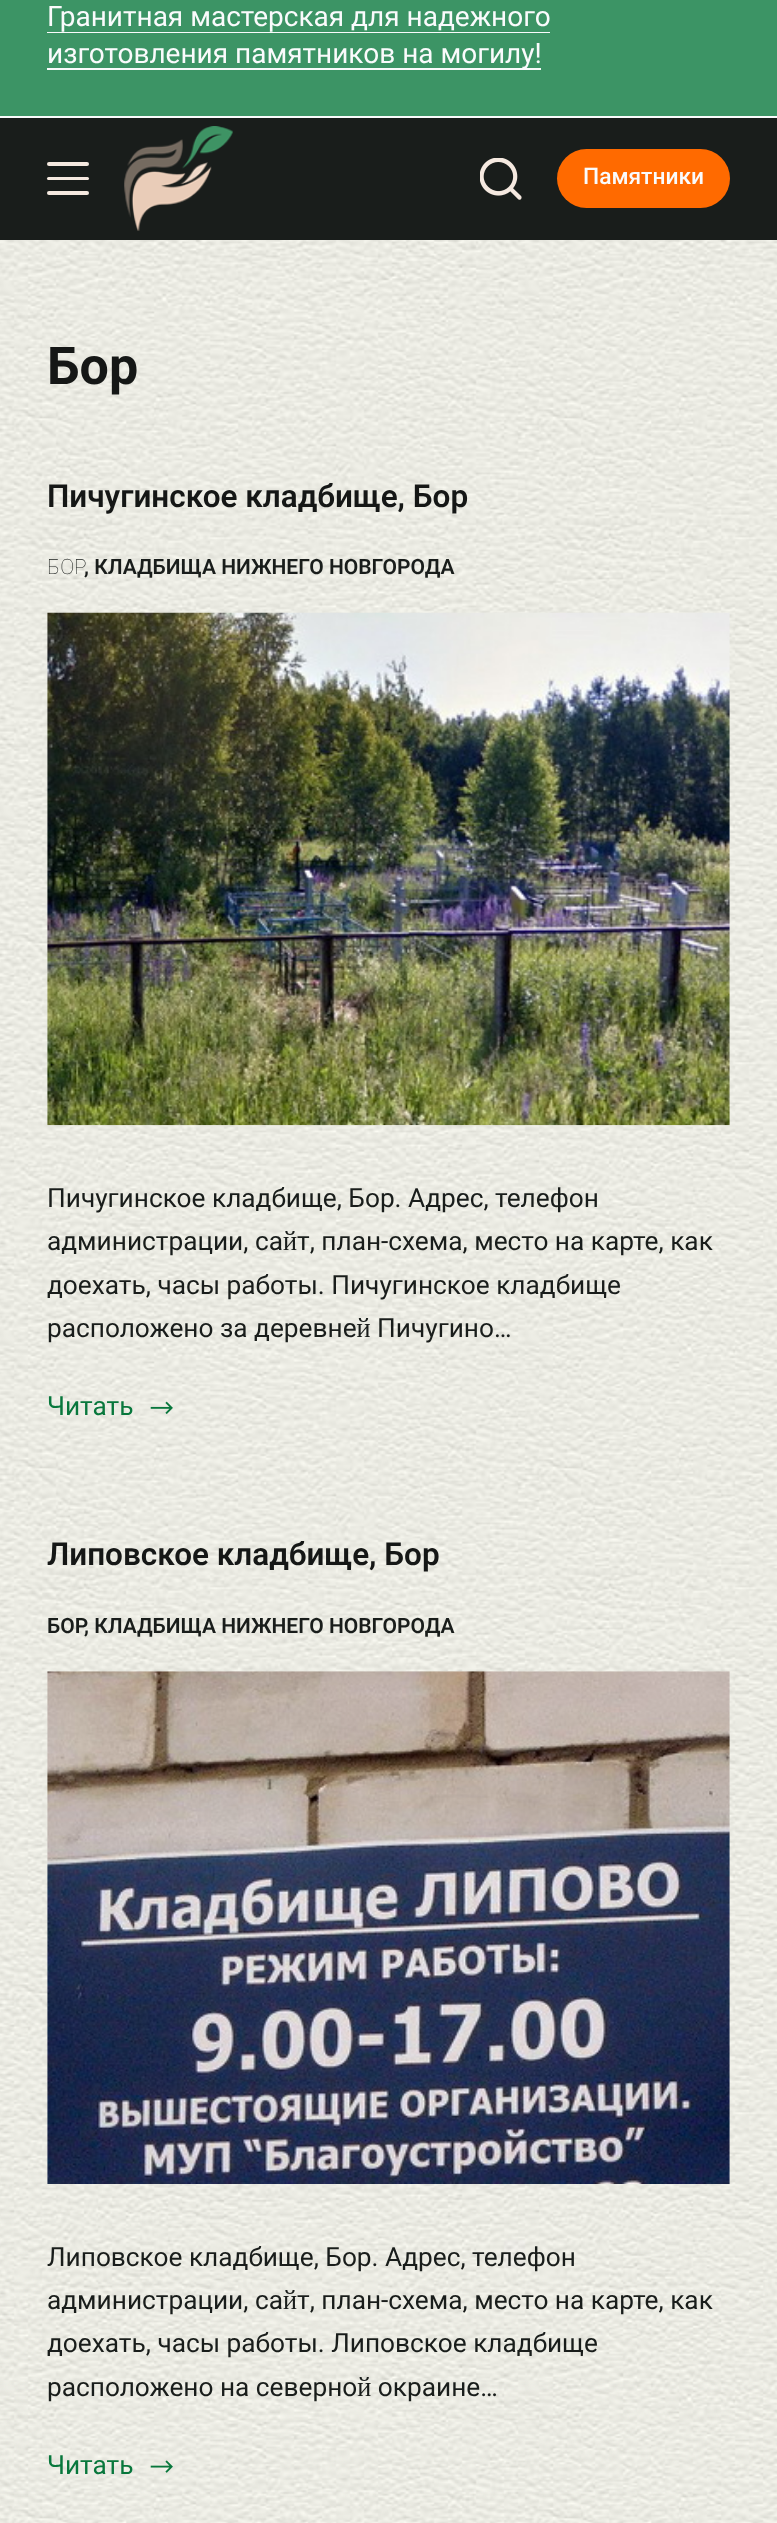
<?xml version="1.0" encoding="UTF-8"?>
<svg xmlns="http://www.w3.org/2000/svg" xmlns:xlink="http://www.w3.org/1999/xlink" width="777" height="2523">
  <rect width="100%" height="100%" fill="#ffffff" />
  <image x="0" y="240" width="777" height="2283" xlink:href="image1.png" />
  <rect width="777" height="116" fill="#3c9465" />
  <rect y="116" width="777" height="2" fill="#fafbfc" />
  <rect x="47" y="32" width="503" height="1" fill="#fafbfc" />
  <rect x="47" y="68" width="494" height="2" fill="#fafbfc" />
  <rect y="118" width="777" height="122" fill="#191d1b" />
  <rect x="47" y="162" width="42" height="4" rx="2" fill="#f5e9e0" />
  <rect x="47" y="177" width="42" height="3" rx="1.5" fill="#f5e9e0" />
  <rect x="47" y="191" width="42" height="4" rx="2" fill="#f5e9e0" />
  <image x="124" y="126" width="109" height="105" xlink:href="image2.png" />
  <image x="480" y="158" width="42" height="42" xlink:href="image3.png" />
  <rect x="557" y="149" width="173" height="59" rx="29.5" fill="#ff6a00" />
  <image x="47" y="612" width="683" height="514" xlink:href="image4.png" />
  <image x="150" y="1401" width="23" height="13" xlink:href="image5.png" />
  <image x="47" y="1671" width="683" height="513" xlink:href="image6.png" />
  <image x="150" y="2460" width="23" height="13" xlink:href="image7.png" />
  <text x="47" y="26" style="font-family: Roboto; font-size: 28px; fill: #fafbfc">Гранитная мастерская для надежного</text>
  <text x="47" y="63" style="font-family: Roboto; font-size: 28px; fill: #fafbfc">изготовления памятников на могилу!</text>
  <text x="583" y="184" style="font-family: Roboto; font-size: 22.75px; font-weight: 500; fill: #fafbfc">Памятники</text>
  <text x="47" y="384" style="font-family: Roboto; font-size: 52px; font-weight: bold; fill: #151716">Бор</text>
  <text x="47" y="507" style="font-family: Roboto; font-size: 31.5px; font-weight: 600; fill: #151716">Пичугинское кладбище, Бор</text>
  <text x="47" y="574" style="font-family: Roboto; font-size: 21px; font-weight: 100; fill: #191d1b">БОР</text>
  <text x="84" y="574" style="font-family: Roboto; font-size: 21px; font-weight: 600; fill: #191d1b">, КЛАДБИЩА НИЖНЕГО НОВГОРОДА</text>
  <text x="47" y="1207" style="font-family: Roboto; font-size: 26.25px; fill: #191d1b">Пичугинское кладбище, Бор. Адрес, телефон</text>
  <text x="47" y="1250" style="font-family: Roboto; font-size: 26.25px; fill: #191d1b">администрации, сайт, план-схема, место на карте, как</text>
  <text x="47" y="1294" style="font-family: Roboto; font-size: 26.25px; fill: #191d1b">доехать, часы работы. Пичугинское кладбище</text>
  <text x="47" y="1337" style="font-family: Roboto; font-size: 26.25px; fill: #191d1b">расположено за деревней Пичугино…</text>
  <text x="47" y="1415" style="font-family: Roboto; font-size: 26.25px; fill: #08773c">Читать</text>
  <text x="47" y="1565" style="font-family: Roboto; font-size: 31.5px; font-weight: 600; fill: #151716">Липовское кладбище, Бор</text>
  <text x="47" y="1633" style="font-family: Roboto; font-size: 21px; font-weight: 600; fill: #191d1b">БОР</text>
  <text x="84" y="1633" style="font-family: Roboto; font-size: 21px; font-weight: 600; fill: #191d1b">, КЛАДБИЩА НИЖНЕГО НОВГОРОДА</text>
  <text x="47" y="2266" style="font-family: Roboto; font-size: 26.25px; fill: #191d1b">Липовское кладбище, Бор. Адрес, телефон</text>
  <text x="47" y="2309" style="font-family: Roboto; font-size: 26.25px; fill: #191d1b">администрации, сайт, план-схема, место на карте, как</text>
  <text x="47" y="2352" style="font-family: Roboto; font-size: 26.25px; fill: #191d1b">доехать, часы работы. Липовское кладбище</text>
  <text x="47" y="2396" style="font-family: Roboto; font-size: 26.25px; fill: #191d1b">расположено на северной окраине…</text>
  <text x="47" y="2474" style="font-family: Roboto; font-size: 26.25px; fill: #08773c">Читать</text>
</svg>
